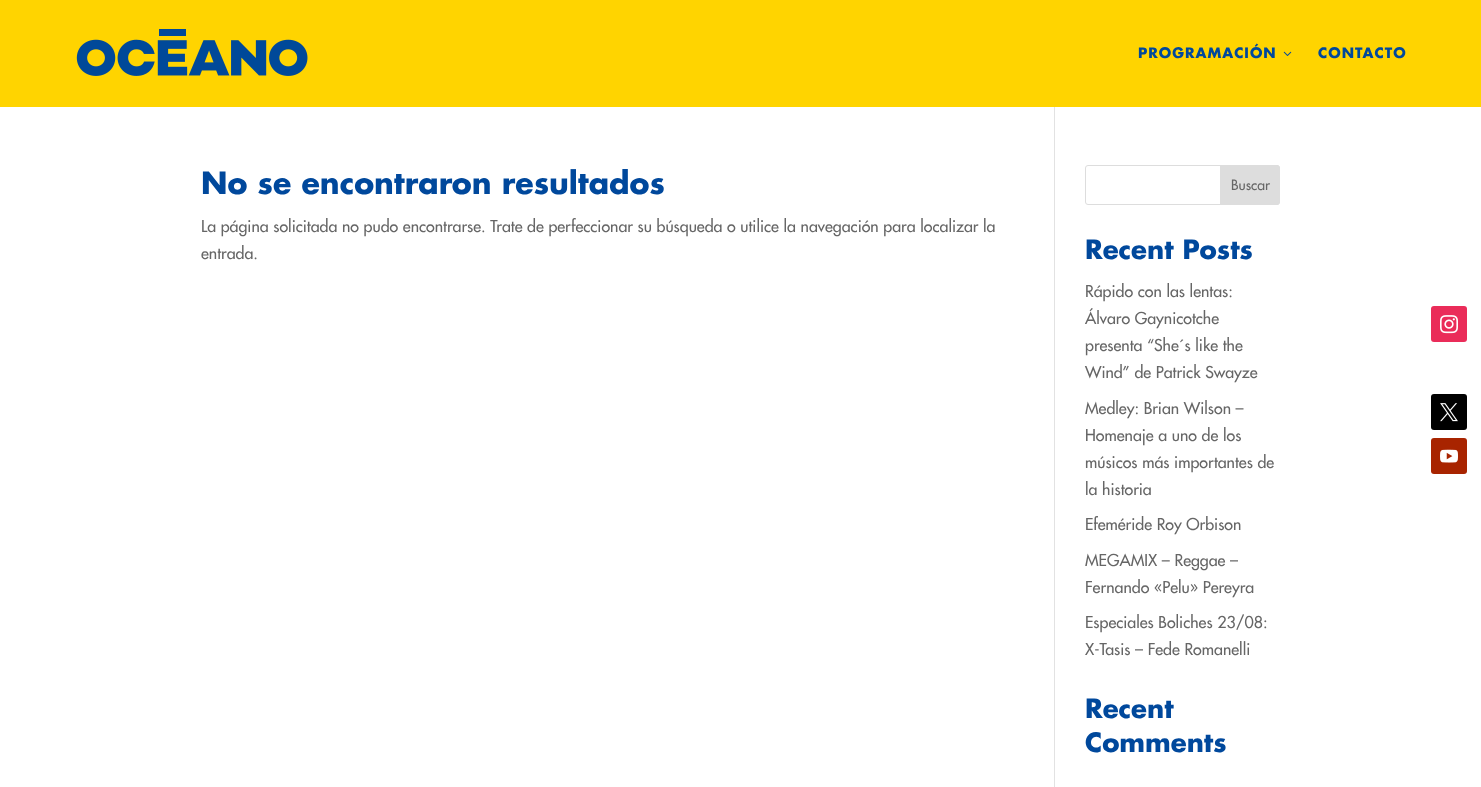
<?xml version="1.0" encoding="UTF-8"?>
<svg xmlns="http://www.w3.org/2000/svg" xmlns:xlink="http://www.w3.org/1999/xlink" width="1481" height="787">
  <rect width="100%" height="100%" fill="#ffd400" />
  <image x="76" y="29" width="232" height="47" xlink:href="image1.png" />
  <image x="1283" y="51" width="9" height="5" xlink:href="image2.png" />
  <rect y="107" width="1481" height="680" fill="#ffffff" />
  <rect x="1431" y="306" width="36" height="36" rx="3" fill="#ea2c59" />
  <image x="1440" y="315" width="18" height="19" xlink:href="image3.png" />
  <rect x="1431" y="394" width="36" height="36" rx="3" fill="#000000" />
  <image x="1440" y="403" width="18" height="19" xlink:href="image4.png" />
  <rect x="1431" y="438" width="36" height="36" rx="3" fill="#a82400" />
  <image x="1440" y="449" width="18" height="14" xlink:href="image5.png" />
  <rect x="1054" y="107" width="1" height="680" fill="#e2e2e2" />
  <rect x="1085.5" y="165.5" width="194" height="39" rx="2.5" fill="none" stroke="#dddddd" />
  <path d="M 1220.5 165.5 h 56.5 c 1.5 0 2.5 1 2.5 2.5 v 34 c 0 1.5 -1 2.5 -2.5 2.5 h -56.5 z" fill="#dddddd" stroke="#dddddd" />
  <text x="1138" y="58" style="font-family: Futura; font-size: 14px; font-weight: bold; letter-spacing: 1px; fill: #00489c">PROGRAMACIÓN</text>
  <text x="1318" y="58" style="font-family: Futura; font-size: 14px; font-weight: bold; letter-spacing: 1px; fill: #00489c">CONTACTO</text>
  <text x="201" y="194" style="font-family: Futura; font-size: 30px; font-weight: bold; fill: #00489c">No se encontraron resultados</text>
  <text x="201" y="232" style="font-family: Futura; font-size: 16px; font-weight: 500; fill: #666666">La página solicitada no pudo encontrarse. Trate de perfeccionar su búsqueda o utilice la navegación para localizar la</text>
  <text x="201" y="259" style="font-family: Futura; font-size: 16px; font-weight: 500; fill: #666666">entrada.</text>
  <text x="1231" y="190" style="font-family: Futura; font-size: 14px; font-weight: 500; fill: #666666">Buscar</text>
  <text x="1085" y="259" style="font-family: Futura; font-size: 26px; font-weight: bold; fill: #00489c">Recent Posts</text>
  <text x="1085" y="297" style="font-family: Futura; font-size: 16px; font-weight: 500; fill: #666666">Rápido con las lentas:</text>
  <text x="1085" y="324" style="font-family: Futura; font-size: 16px; font-weight: 500; fill: #666666">Álvaro Gaynicotche</text>
  <text x="1085" y="351" style="font-family: Futura; font-size: 16px; font-weight: 500; fill: #666666">presenta “She´s like the</text>
  <text x="1085" y="378" style="font-family: Futura; font-size: 16px; font-weight: 500; fill: #666666">Wind” de Patrick Swayze</text>
  <text x="1085" y="414" style="font-family: Futura; font-size: 16px; font-weight: 500; fill: #666666">Medley: Brian Wilson –</text>
  <text x="1085" y="441" style="font-family: Futura; font-size: 16px; font-weight: 500; fill: #666666">Homenaje a uno de los</text>
  <text x="1085" y="468" style="font-family: Futura; font-size: 16px; font-weight: 500; fill: #666666">músicos más importantes de</text>
  <text x="1085" y="495" style="font-family: Futura; font-size: 16px; font-weight: 500; fill: #666666">la historia</text>
  <text x="1085" y="530" style="font-family: Futura; font-size: 16px; font-weight: 500; fill: #666666">Efeméride Roy Orbison</text>
  <text x="1085" y="566" style="font-family: Futura; font-size: 16px; font-weight: 500; fill: #666666">MEGAMIX – Reggae –</text>
  <text x="1085" y="593" style="font-family: Futura; font-size: 16px; font-weight: 500; fill: #666666">Fernando «Pelu» Pereyra</text>
  <text x="1085" y="628" style="font-family: Futura; font-size: 16px; font-weight: 500; fill: #666666">Especiales Boliches 23/08:</text>
  <text x="1085" y="655" style="font-family: Futura; font-size: 16px; font-weight: 500; fill: #666666">X-Tasis – Fede Romanelli</text>
  <text x="1085" y="718" style="font-family: Futura; font-size: 26px; font-weight: bold; fill: #00489c">Recent</text>
  <text x="1085" y="752" style="font-family: Futura; font-size: 26px; font-weight: bold; fill: #00489c">Comments</text>
</svg>
